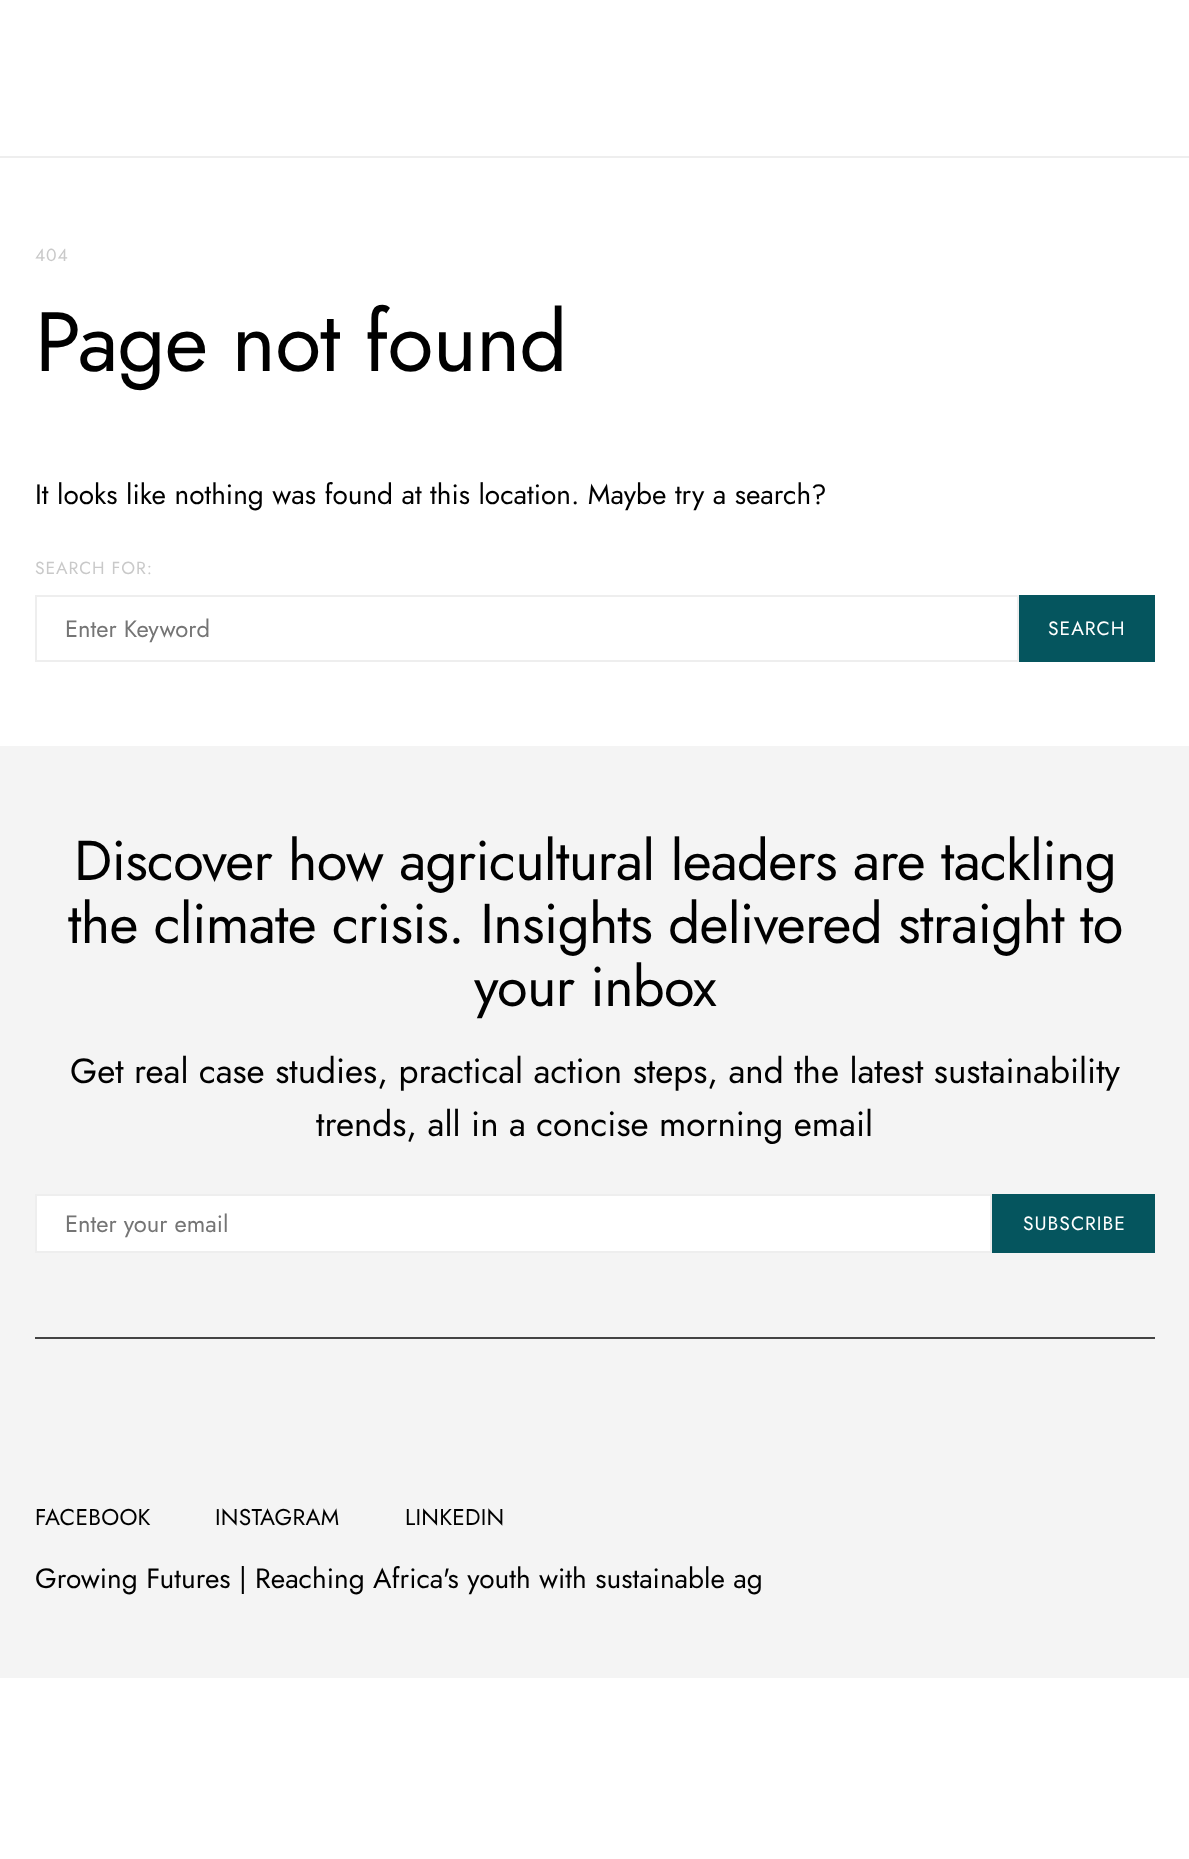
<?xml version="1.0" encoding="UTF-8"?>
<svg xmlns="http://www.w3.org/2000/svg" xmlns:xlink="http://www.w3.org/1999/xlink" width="1189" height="1859">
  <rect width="100%" height="100%" fill="#ffffff" />
  <rect y="156" width="1189" height="2" fill="#eeeeee" />
  <rect x="36" y="596" width="982" height="65" fill="none" stroke="#eeeeee" stroke-width="2" />
  <rect x="1019" y="595" width="136" height="67" fill="#05555e" />
  <rect y="746" width="1189" height="932" fill="#f4f4f4" />
  <rect x="36" y="1195" width="955" height="57" fill="#ffffff" stroke="#eeeeee" stroke-width="2" />
  <rect x="992" y="1194" width="163" height="59" fill="#05555e" />
  <rect x="35" y="1337" width="1120" height="2" fill="#444444" />
  <text x="35" y="261" style="font-family: Jost; font-size: 17.5px; letter-spacing: 0.9px; fill: #c9c9c9">404</text>
  <text x="35" y="371" style="font-family: Jost; font-size: 84px; letter-spacing: -0.7px; fill: #000000">Page not found</text>
  <text x="35" y="504" style="font-family: Jost; font-size: 28px; fill: #000000">It looks like nothing was found at this location. Maybe try a search?</text>
  <text x="35" y="574" style="font-family: Jost; font-size: 17.5px; letter-spacing: 0.9px; fill: #c9c9c9">SEARCH FOR:</text>
  <text x="65" y="637" style="font-family: Jost; font-size: 23.75px; fill: #757575">Enter Keyword</text>
  <text x="1048" y="635" style="font-family: Jost; font-size: 19.25px; letter-spacing: 1px; fill: #ffffff">SEARCH</text>
  <text x="74" y="880" style="font-family: Jost; font-size: 56px; letter-spacing: -0.7px; fill: #000000">Discover how agricultural leaders are tackling</text>
  <text x="68" y="943" style="font-family: Jost; font-size: 56px; letter-spacing: -0.7px; fill: #000000">the climate crisis. Insights delivered straight to</text>
  <text x="474" y="1006" style="font-family: Jost; font-size: 56px; letter-spacing: -0.7px; fill: #000000">your inbox</text>
  <text x="70" y="1083" style="font-family: Jost; font-size: 35px; fill: #000000">Get real case studies, practical action steps, and the latest sustainability</text>
  <text x="316" y="1136" style="font-family: Jost; font-size: 35px; fill: #000000">trends, all in a concise morning email</text>
  <text x="65" y="1232" style="font-family: Jost; font-size: 23.75px; fill: #757575">Enter your email</text>
  <text x="1023" y="1230" style="font-family: Jost; font-size: 19.25px; letter-spacing: 1px; fill: #ffffff">SUBSCRIBE</text>
  <text x="35" y="1525" style="font-family: Jost; font-size: 22.75px; letter-spacing: 0.25px; fill: #000000">FACEBOOK</text>
  <text x="215" y="1525" style="font-family: Jost; font-size: 22.75px; letter-spacing: 0.25px; fill: #000000">INSTAGRAM</text>
  <text x="405" y="1525" style="font-family: Jost; font-size: 22.75px; letter-spacing: 0.25px; fill: #000000">LINKEDIN</text>
  <text x="35" y="1588" style="font-family: Jost; font-size: 28px; fill: #000000">Growing Futures | Reaching Africa's youth with sustainable ag</text>
</svg>
